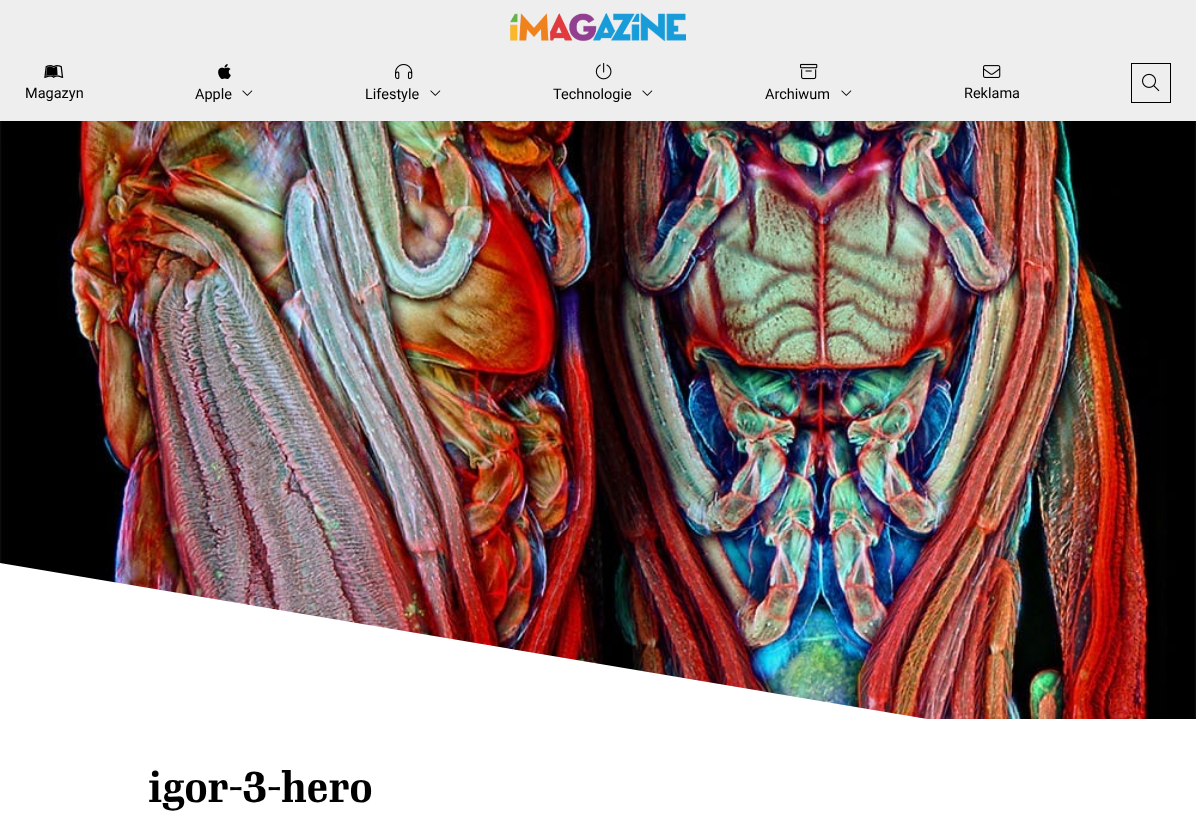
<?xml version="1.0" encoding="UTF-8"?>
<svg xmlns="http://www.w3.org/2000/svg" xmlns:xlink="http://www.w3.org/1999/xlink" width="1196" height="830">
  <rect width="100%" height="100%" fill="#ffffff" />
  <image x="0" y="121" width="1196" height="598" xlink:href="image10.png" />
  <rect x="10" y="20" width="1176" height="101" fill="#000000" fill-opacity="0.1" filter="blur(15px)" />
  <rect width="1196" height="121" fill="#eeeeee" />
  <image x="510" y="12" width="176" height="29" xlink:href="image1.png" />
  <image x="44" y="65" width="20" height="13" xlink:href="image2.png" />
  <image x="218" y="64" width="13" height="16" xlink:href="image3.png" />
  <image x="242" y="90" width="11" height="6" xlink:href="image4.png" />
  <image x="395" y="64" width="18" height="16" xlink:href="image5.png" />
  <image x="430" y="90" width="11" height="6" xlink:href="image4.png" />
  <image x="595" y="62" width="17" height="18" xlink:href="image6.png" />
  <image x="642" y="90" width="11" height="6" xlink:href="image4.png" />
  <image x="800" y="63" width="18" height="17" xlink:href="image7.png" />
  <image x="841" y="90" width="11" height="6" xlink:href="image4.png" />
  <image x="983" y="65" width="18" height="13" xlink:href="image8.png" />
  <rect x="1131.5" y="63.5" width="39" height="39" fill="none" stroke="#000000" />
  <image x="1142" y="73" width="18" height="19" xlink:href="image9.png" />
  <path d="M 0 563 v 161 h 957 z" fill="#ffffff" />
  <text x="25" y="98" style="font-family: Roboto; font-size: 14.5px; fill: #000000">Magazyn</text>
  <text x="195" y="99" style="font-family: Roboto; font-size: 14.5px; fill: #000000">Apple</text>
  <text x="365" y="99" style="font-family: Roboto; font-size: 14.5px; fill: #000000">Lifestyle</text>
  <text x="553" y="99" style="font-family: Roboto; font-size: 14.5px; fill: #000000">Technologie</text>
  <text x="765" y="99" style="font-family: Roboto; font-size: 14.5px; fill: #000000">Archiwum</text>
  <text x="964" y="98" style="font-family: Roboto; font-size: 14.5px; fill: #000000">Reklama</text>
  <text x="148" y="802" style="font-family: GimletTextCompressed; font-size: 42.25px; font-weight: bold; fill: #000000">igor-3-hero</text>
</svg>
